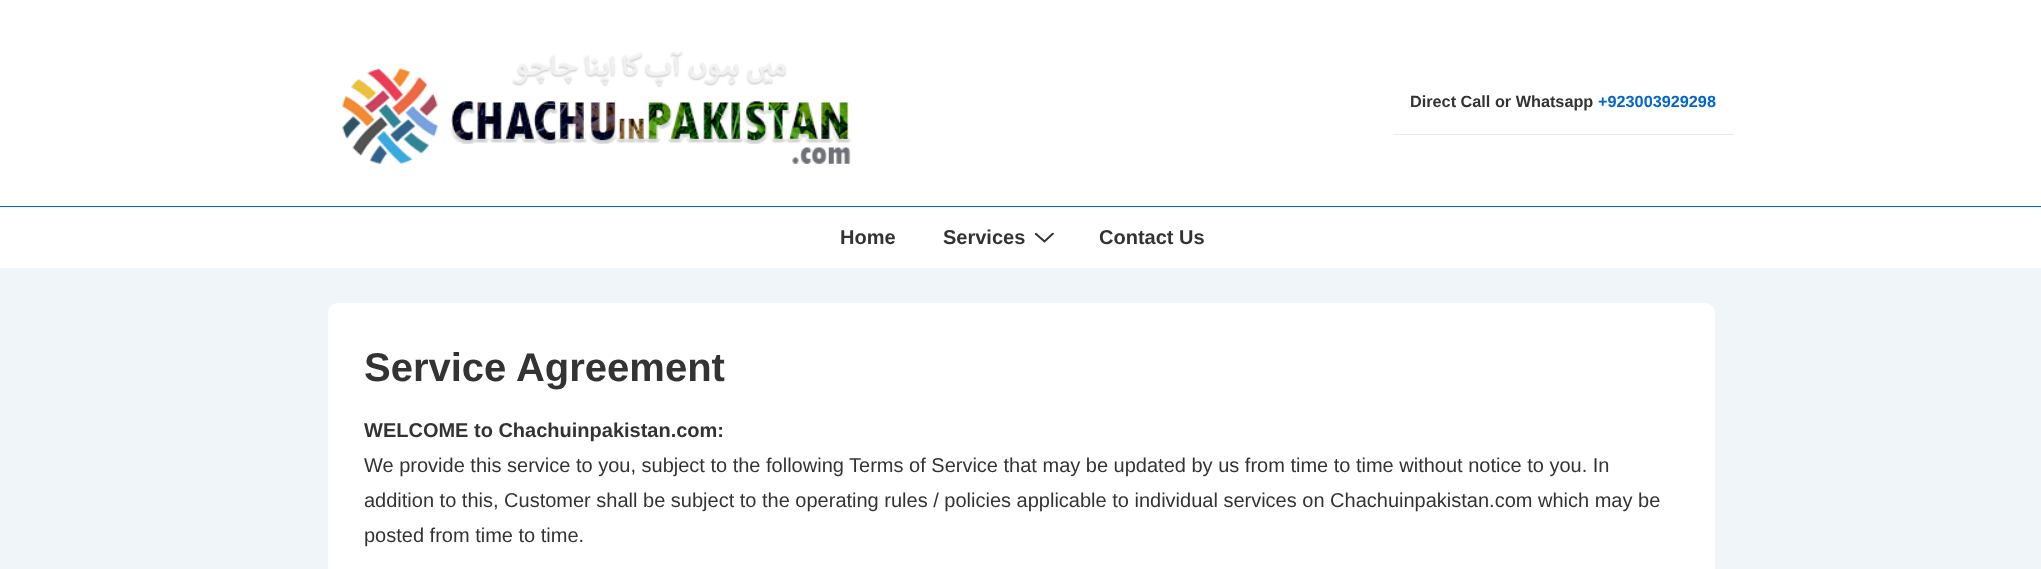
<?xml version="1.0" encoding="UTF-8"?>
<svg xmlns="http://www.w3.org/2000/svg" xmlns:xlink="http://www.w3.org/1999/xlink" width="2041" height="569">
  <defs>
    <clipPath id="clip1"><rect x="1035" y="233" width="19" height="10" /></clipPath>
  </defs>
  <rect width="100%" height="100%" fill="#f0f5fa" />
  <rect width="2041" height="268" fill="#ffffff" />
  <rect y="206" width="2041" height="1" fill="#0066cc" />
  <image x="342" y="51" width="510" height="114" xlink:href="image1.png" />
  <rect x="1393" y="134" width="341" height="1" fill="#eaeaea" />
  <g clip-path="url(#clip1)">
    <path d="M 1035.5 233.5 l 9 8 l 8.5 -8" fill="none" stroke="#333333" stroke-width="2" stroke-linecap="round" />
  </g>
  <rect x="328" y="303" width="1387" height="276" rx="10" fill="#ffffff" />
  <text x="1410" y="107" style="font-family: Liberation Sans; font-size: 16.25px; font-weight: bold; fill: #333333">Direct Call or Whatsapp</text>
  <text x="1598" y="107" style="font-family: Liberation Sans; font-size: 16.25px; font-weight: bold; fill: #0066cc">+923003929298</text>
  <text x="840" y="244" style="font-family: Liberation Sans; font-size: 20px; font-weight: bold; fill: #333333">Home</text>
  <text x="943" y="244" style="font-family: Liberation Sans; font-size: 20px; font-weight: bold; fill: #333333">Services</text>
  <text x="1099" y="244" style="font-family: Liberation Sans; font-size: 20px; font-weight: bold; fill: #333333">Contact Us</text>
  <text x="364" y="381" style="font-family: Liberation Sans; font-size: 40px; font-weight: bold; fill: #333333">Service Agreement</text>
  <text x="364" y="437" style="font-family: Liberation Sans; font-size: 20px; font-weight: bold; fill: #333333">WELCOME to Chachuinpakistan.com:</text>
  <text x="364" y="472" style="font-family: Liberation Sans; font-size: 20px; fill: #333333">We provide this service to you, subject to the following Terms of Service that may be updated by us from time to time without notice to you. In</text>
  <text x="364" y="507" style="font-family: Liberation Sans; font-size: 20px; fill: #333333">addition to this, Customer shall be subject to the operating rules / policies applicable to individual services on Chachuinpakistan.com which may be</text>
  <text x="364" y="542" style="font-family: Liberation Sans; font-size: 20px; fill: #333333">posted from time to time.</text>
</svg>
